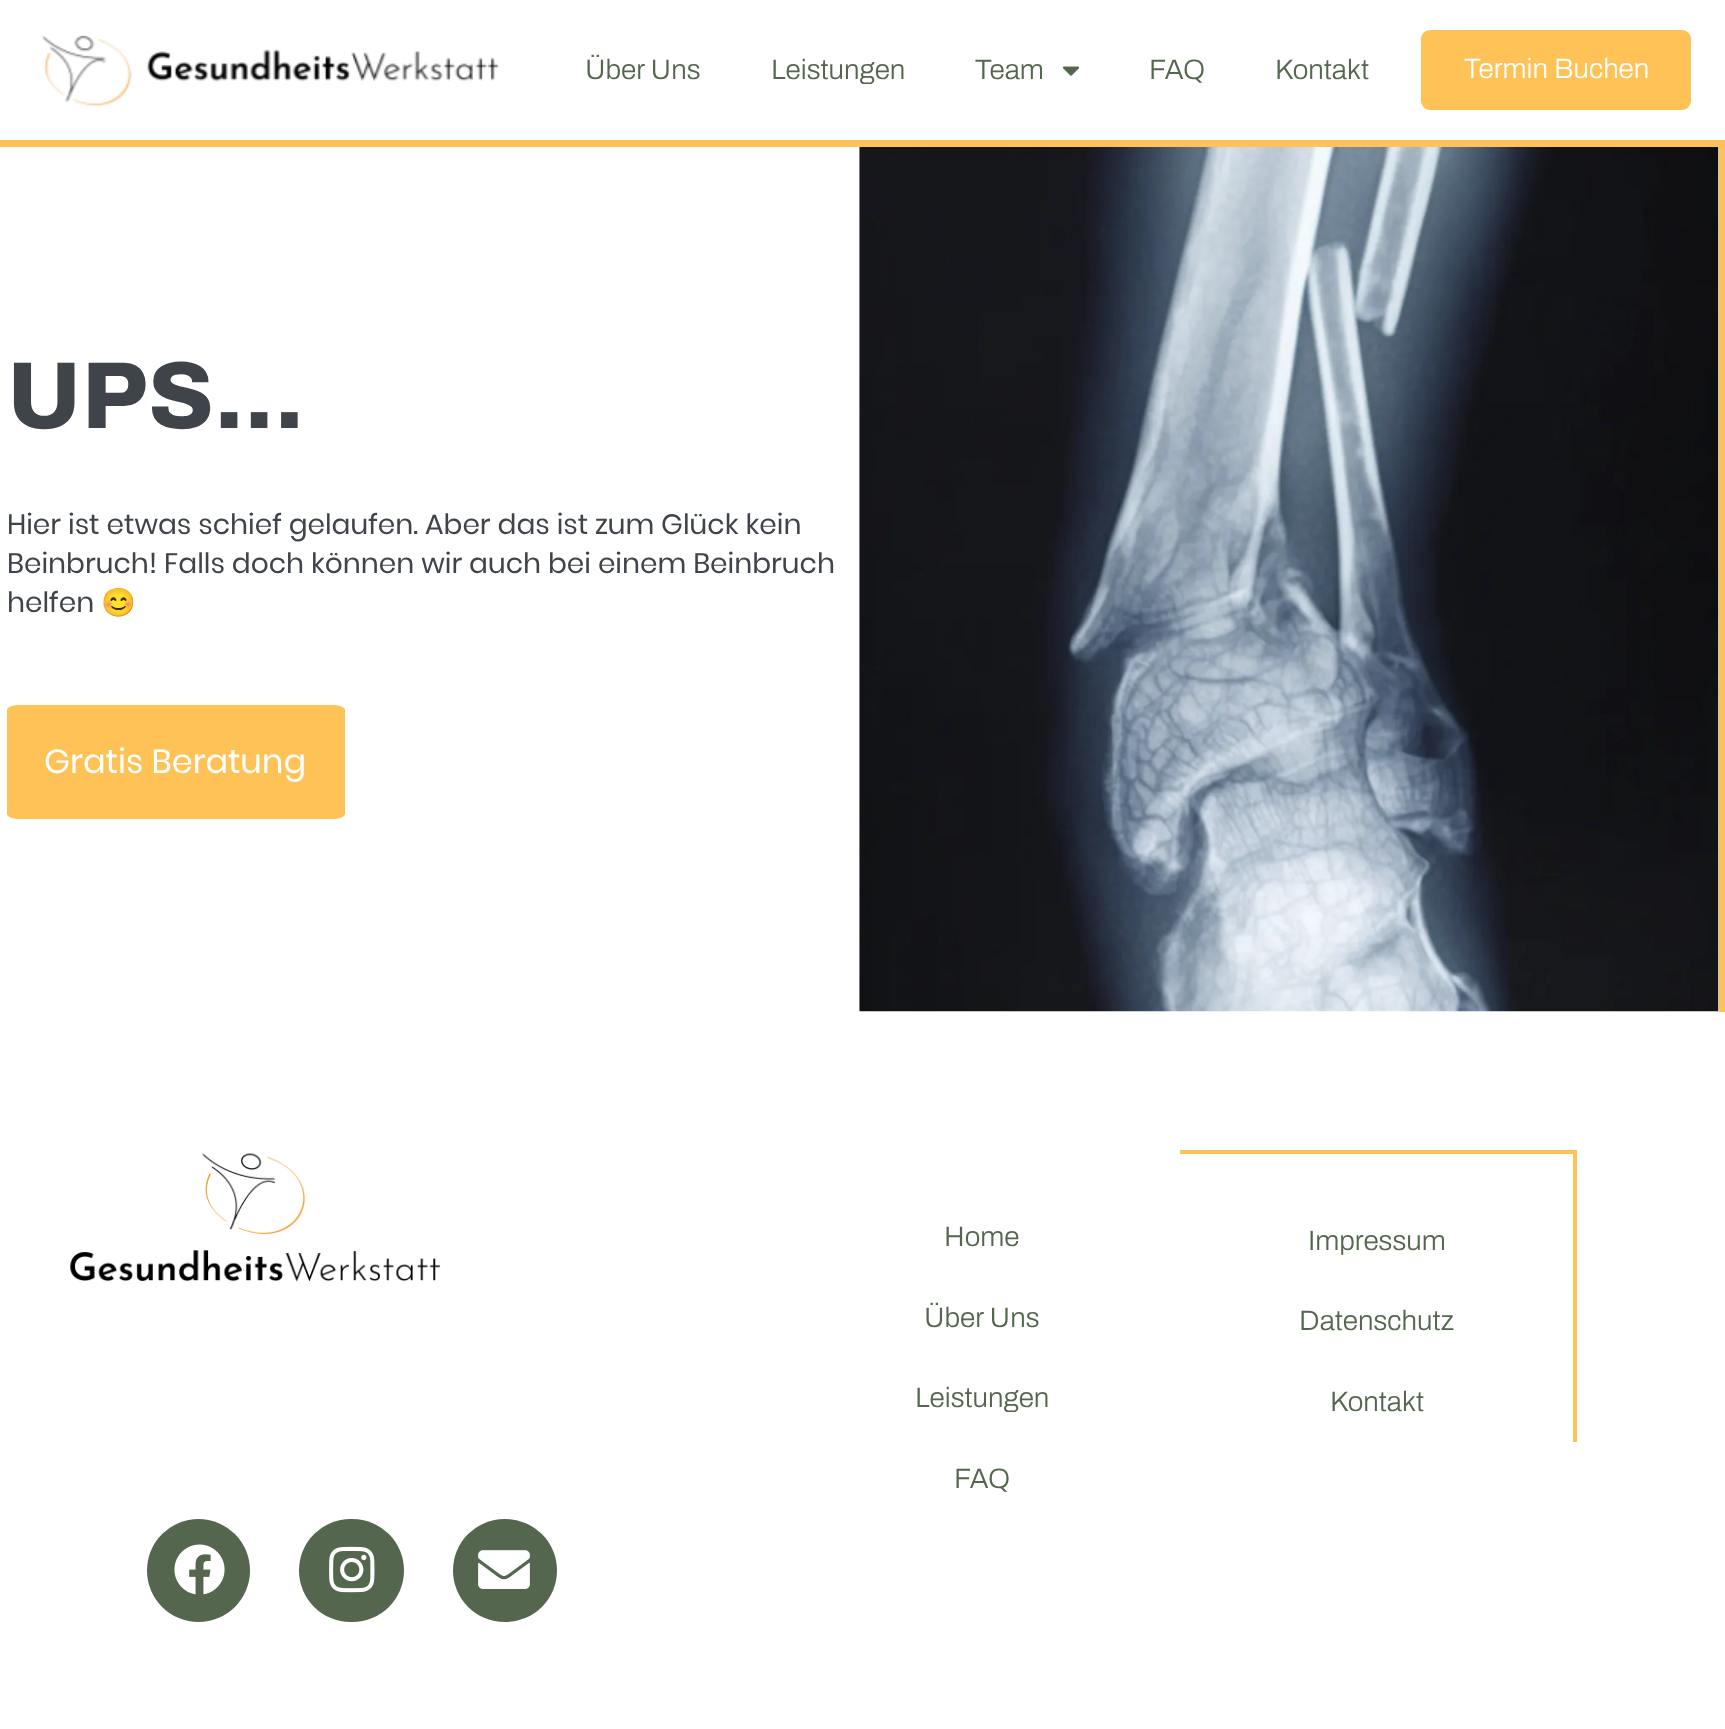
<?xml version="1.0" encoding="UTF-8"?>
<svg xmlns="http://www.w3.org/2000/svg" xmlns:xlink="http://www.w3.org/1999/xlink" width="1725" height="1729">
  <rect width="100%" height="100%" fill="#ffffff" />
  <image x="42" y="35" width="457" height="72" xlink:href="image1.png" />
  <image x="1062" y="66" width="18" height="10" xlink:href="image2.png" />
  <rect x="1421" y="30" width="270" height="80" rx="9" fill="#ffc257" />
  <rect y="140" width="1725" height="7" fill="#ffc257" />
  <rect x="1719" y="140" width="6" height="872" fill="#ffc257" />
  <path d="M 21 705 h 310 c 8 0 14 2 14 5 v 104 c 0 3 -6 5 -14 5 h -310 c -8 0 -14 -2 -14 -5 v -104 c 0 -3 6 -5 14 -5 z" fill="#ffc257" />
  <image x="859" y="147" width="860" height="865" xlink:href="image3.png" />
  <image x="70" y="1153" width="371" height="129" xlink:href="image4.png" />
  <rect x="1180" y="1150" width="397" height="4" fill="#ffc257" />
  <rect x="1573" y="1150" width="4" height="292" fill="#ffc257" />
  <circle cx="198.5" cy="1570.5" r="51.5" fill="#55664e" />
  <image x="174" y="1544" width="51" height="51" xlink:href="image5.png" />
  <rect x="299" y="1519" width="105" height="103" rx="51.5" fill="#55664e" />
  <image x="329" y="1546" width="46" height="47" xlink:href="image6.png" />
  <rect x="453" y="1519" width="104" height="103" rx="51.5" fill="#55664e" />
  <image x="478" y="1550" width="52" height="39" xlink:href="image7.png" />
  <text x="585" y="79" style="font-family: Archivo; font-size: 28px; font-weight: 300; fill: #55664e">Über Uns</text>
  <text x="771" y="79" style="font-family: Archivo; font-size: 28px; font-weight: 300; fill: #55664e">Leistungen</text>
  <text x="975" y="79" style="font-family: Archivo; font-size: 28px; font-weight: 300; fill: #55664e">Team</text>
  <text x="1149" y="79" style="font-family: Archivo; font-size: 28px; font-weight: 300; fill: #55664e">FAQ</text>
  <text x="1275" y="79" style="font-family: Archivo; font-size: 28px; font-weight: 300; fill: #55664e">Kontakt</text>
  <text x="1464" y="78" style="font-family: Archivo; font-size: 28px; font-weight: 300; fill: #ffffff">Termin Buchen</text>
  <text x="7" y="428" style="font-family: Archivo; font-size: 95px; font-weight: 800; fill: #3f444b">UPS...</text>
  <text x="7" y="534" style="font-family: Poppins; font-size: 28px; fill: #3f444b">Hier ist etwas schief gelaufen. Aber das ist zum Glück kein</text>
  <text x="7" y="573" style="font-family: Poppins; font-size: 28px; fill: #3f444b">Beinbruch! Falls doch können wir auch bei einem Beinbruch</text>
  <text x="7" y="612" style="font-family: Poppins; font-size: 28px; fill: #3f444b">helfen</text>
  <text x="101" y="612" style="font-family: Noto Color Emoji; font-size: 28px; fill: #3f444b">😊</text>
  <text x="44" y="773" style="font-family: Poppins; font-size: 33.5px; fill: #ffffff">Gratis Beratung</text>
  <text x="944" y="1246" style="font-family: Archivo; font-size: 28px; font-weight: 300; fill: #55664e">Home</text>
  <text x="924" y="1327" style="font-family: Archivo; font-size: 28px; font-weight: 300; fill: #55664e">Über Uns</text>
  <text x="915" y="1407" style="font-family: Archivo; font-size: 28px; font-weight: 300; fill: #55664e">Leistungen</text>
  <text x="954" y="1488" style="font-family: Archivo; font-size: 28px; font-weight: 300; fill: #55664e">FAQ</text>
  <text x="1308" y="1250" style="font-family: Archivo; font-size: 28px; font-weight: 300; fill: #55664e">Impressum</text>
  <text x="1299" y="1330" style="font-family: Archivo; font-size: 28px; font-weight: 300; fill: #55664e">Datenschutz</text>
  <text x="1330" y="1411" style="font-family: Archivo; font-size: 28px; font-weight: 300; fill: #55664e">Kontakt</text>
</svg>
